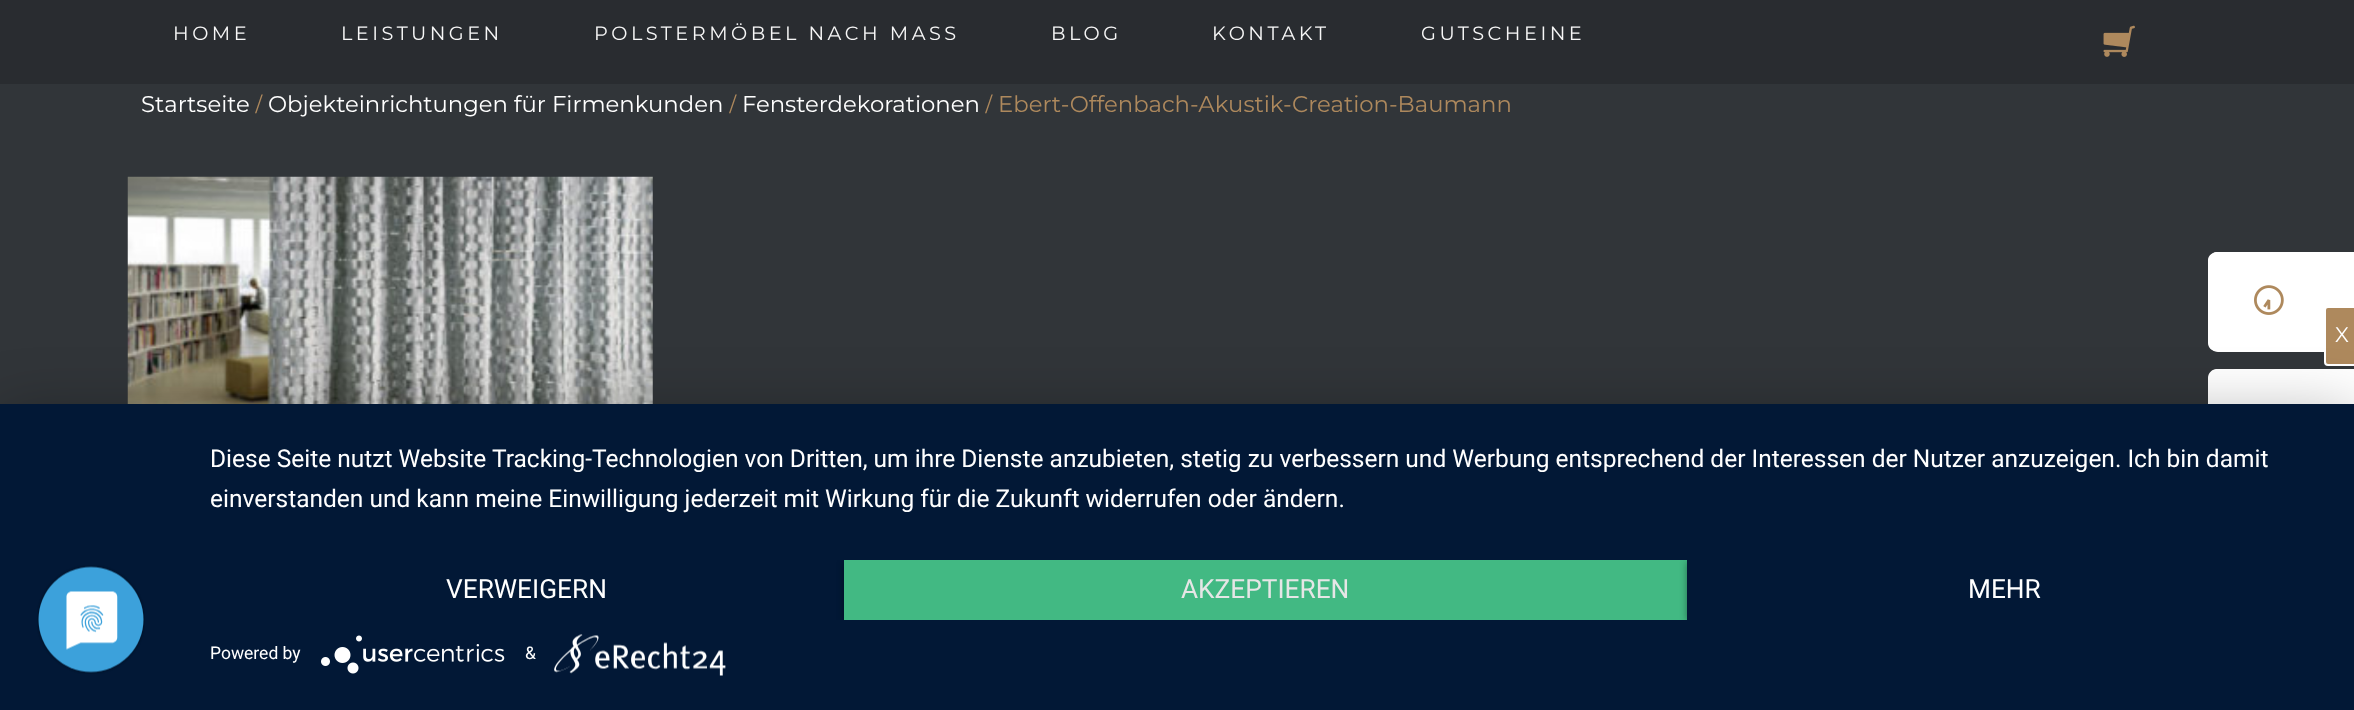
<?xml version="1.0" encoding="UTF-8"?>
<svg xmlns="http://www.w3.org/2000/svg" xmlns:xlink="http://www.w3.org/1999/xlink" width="2354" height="710">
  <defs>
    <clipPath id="clip1"><rect x="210" y="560" width="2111" height="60" /></clipPath>
  </defs>
  <rect width="100%" height="100%" fill="#313539" />
  <rect width="2354" height="84" fill="#292c30" />
  <image x="2103" y="25" width="32" height="32" xlink:href="image1.png" />
  <image x="127" y="176" width="526" height="228" xlink:href="image2.png" />
  <path d="M 2218 252 h 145 v 100 h -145 c -5 0 -9 -4 -9 -9 v -82 c 0 -5 4 -9 9 -9 z" fill="#ffffff" />
  <path d="M 2217 252 h 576 v 99 h -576 c -5 0 -9 -3 -9 -8 v -83 c 0 -4 4 -8 9 -8 z m 0 1 h 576 v 97 h -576 c -4 0 -7 -3 -7 -7 v -83 c 0 -3 3 -7 7 -7 z" fill="#ffffff" fill-rule="evenodd" />
  <image x="2254" y="285" width="30" height="30" xlink:href="image3.png" />
  <path d="M 2218 369 h 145 v 100 h -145 c -5 0 -9 -4 -9 -9 v -82 c 0 -5 4 -9 9 -9 z" fill="#ffffff" />
  <path d="M 2217 369 h 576 v 100 h -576 c -5 0 -9 -4 -9 -9 v -82 c 0 -5 4 -9 9 -9 z m 0 2 h 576 v 96 h -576 c -4 0 -7 -3 -7 -7 v -82 c 0 -4 3 -7 7 -7 z" fill="#ffffff" fill-rule="evenodd" />
  <rect x="2325" y="307" width="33" height="58" rx="3" fill="#ae895d" stroke="#ffffff" stroke-width="2" />
  <rect y="415" width="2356" height="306" fill="#000000" fill-opacity="0.3" filter="blur(31.5px)" />
  <rect y="404" width="2354" height="306" fill="#021836" />
  <image x="37" y="565" width="108" height="109" xlink:href="image4.png" />
  <g clip-path="url(#clip1)">
    <rect x="844" y="562" width="843" height="59" fill="#000000" fill-opacity="0.4" filter="blur(3.5px)" />
  </g>
  <rect x="844" y="560" width="843" height="60" fill="#42b983" />
  <g clip-path="url(#clip1)">
    <rect x="1687" y="562" width="634" height="59" fill="#000000" fill-opacity="0.4" filter="blur(3.5px)" />
  </g>
  <rect x="1687" y="560" width="634" height="60" fill="#021836" />
  <image x="321" y="635" width="184" height="39" xlink:href="image5.png" />
  <image x="554" y="634" width="172" height="42" xlink:href="image6.png" />
  <text x="173" y="40" style="font-family: Montserrat; font-size: 19.25px; font-weight: 100; letter-spacing: 3.5px; fill: #f7f7f7">HOME</text>
  <text x="341" y="40" style="font-family: Montserrat; font-size: 19.25px; font-weight: 100; letter-spacing: 3.5px; fill: #f7f7f7">LEISTUNGEN</text>
  <text x="594" y="40" style="font-family: Montserrat; font-size: 19.25px; font-weight: 100; letter-spacing: 3.5px; fill: #f7f7f7">POLSTERMÖBEL NACH MASS</text>
  <text x="1051" y="40" style="font-family: Montserrat; font-size: 19.25px; font-weight: 100; letter-spacing: 3.5px; fill: #f7f7f7">BLOG</text>
  <text x="1212" y="40" style="font-family: Montserrat; font-size: 19.25px; font-weight: 100; letter-spacing: 3.5px; fill: #f7f7f7">KONTAKT</text>
  <text x="1421" y="40" style="font-family: Montserrat; font-size: 19.25px; font-weight: 100; letter-spacing: 3.5px; fill: #f7f7f7">GUTSCHEINE</text>
  <text x="141" y="112" style="font-family: Montserrat; font-size: 22.75px; font-weight: 100; fill: #ffffff">Startseite</text>
  <text x="255" y="113" style="font-family: Liberation Serif; font-size: 28px; fill: #ae895d">/</text>
  <text x="268" y="112" style="font-family: Montserrat; font-size: 22.75px; font-weight: 100; fill: #ffffff">Objekteinrichtungen für Firmenkunden</text>
  <text x="729" y="113" style="font-family: Liberation Serif; font-size: 28px; fill: #ae895d">/</text>
  <text x="742" y="112" style="font-family: Montserrat; font-size: 22.75px; font-weight: 100; fill: #ffffff">Fensterdekorationen</text>
  <text x="985" y="113" style="font-family: Liberation Serif; font-size: 28px; fill: #ae895d">/</text>
  <text x="998" y="112" style="font-family: Montserrat; font-size: 22.75px; font-weight: 100; fill: #ae895d">Ebert-Offenbach-Akustik-Creation-Baumann</text>
  <text x="2335" y="342" style="font-family: Montserrat; font-size: 21px; font-weight: 100; fill: #ffffff">X</text>
  <text x="210" y="467" style="font-family: Roboto; font-size: 24.5px; fill: #ffffff">Diese Seite nutzt Website Tracking-Technologien von Dritten, um ihre Dienste anzubieten, stetig zu verbessern und Werbung entsprechend der Interessen der Nutzer anzuzeigen. Ich bin damit</text>
  <text x="210" y="507" style="font-family: Roboto; font-size: 24.5px; fill: #ffffff">einverstanden und kann meine Einwilligung jederzeit mit Wirkung für die Zukunft widerrufen oder ändern.</text>
  <text x="446" y="598" style="font-family: Roboto; font-size: 26.25px; fill: #ffffff">VERWEIGERN</text>
  <text x="1181" y="598" style="font-family: Roboto; font-size: 26.25px; fill: #e6e6e6">AKZEPTIEREN</text>
  <text x="1968" y="598" style="font-family: Roboto; font-size: 26.25px; fill: #ffffff">MEHR</text>
  <text x="210" y="659" style="font-family: Roboto; font-size: 17.5px; fill: #ffffff">Powered by</text>
  <text x="525" y="659" style="font-family: Roboto; font-size: 17.5px; fill: #ffffff">&amp;</text>
</svg>
